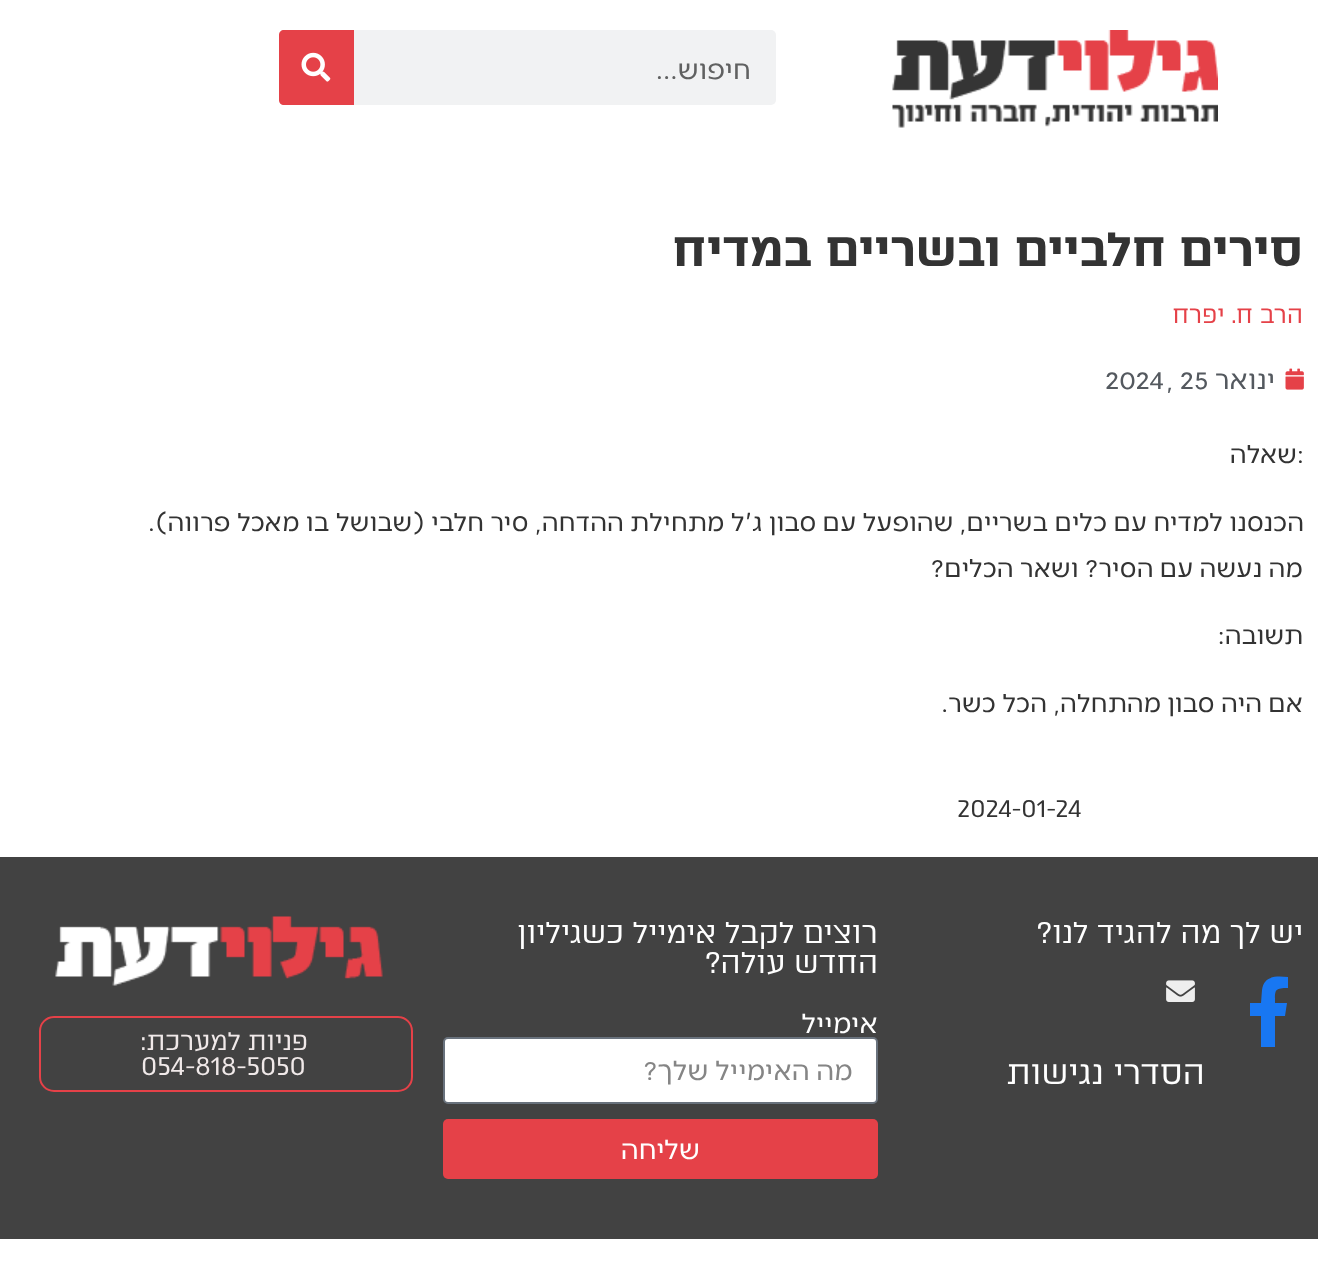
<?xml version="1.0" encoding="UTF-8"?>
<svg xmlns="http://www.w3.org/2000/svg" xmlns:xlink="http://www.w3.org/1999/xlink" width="1318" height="1269">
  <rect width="100%" height="100%" fill="#ffffff" />
  <image x="892" y="30" width="326" height="98" xlink:href="image1.png" />
  <rect x="279" y="30" width="497" height="75" rx="5" fill="#f1f2f3" />
  <path d="M 284 30 h 70 v 75 h -70 c -3 0 -5 -2 -5 -5 v -65 c 0 -3 2 -5 5 -5 z" fill="#e54148" />
  <image x="301" y="52" width="30" height="30" xlink:href="image2.png" />
  <image x="1285" y="368" width="19" height="22" xlink:href="image3.png" />
  <rect y="857" width="1318" height="382" fill="#424242" />
  <path d="M 1285 1016 h -10 v 31 h -14 v -31 h -11 v -13 h 11 l 1 -13 c 2 -15 15 -14 26 -13 v 11 c -14 0 -13 2 -13 15 h 12 z" fill="#1877f2" />
  <image x="1166" y="980" width="29" height="22" xlink:href="image4.png" />
  <rect x="444" y="1038" width="433" height="65" rx="4" fill="#ffffff" stroke="#69727d" stroke-width="2" />
  <rect x="443" y="1119" width="435" height="60" rx="5" fill="#e54148" />
  <image x="55" y="916" width="328" height="70" xlink:href="image5.png" />
  <rect x="40" y="1017" width="372" height="74" rx="14" fill="none" stroke="#e54148" stroke-width="2" />
  <text x="751" y="79" style="font-family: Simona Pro; font-size: 28.75px; direction: rtl; fill: #606161">חיפוש...</text>
  <text x="1303" y="266" style="font-family: 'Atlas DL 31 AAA'; font-size: 48px; font-weight: bold; direction: rtl; fill: #333333">סירים חלביים ובשריים במדיח</text>
  <text x="1303" y="323" style="font-family: 'Atlas DL 31 AAA'; font-size: 24px; direction: rtl; fill: #e54148">הרב ח. יפרח</text>
  <text x="1275" y="389" style="font-family: Simona Pro; font-size: 28.75px; direction: rtl; fill: #54595f">ינואר</text>
  <text x="1166" y="389" style="font-family: Simona Pro; font-size: 28.75px; fill: #54595f">, 25</text>
  <text x="1105" y="389" style="font-family: Simona Pro; font-size: 28.75px; fill: #54595f">2024</text>
  <text x="1297" y="463" style="font-family: Simona Pro; font-size: 27px; fill: #333333">:</text>
  <text x="1297" y="463" style="font-family: Simona Pro; font-size: 27px; direction: rtl; fill: #333333">שאלה</text>
  <text x="1304" y="531" style="font-family: Simona Pro; font-size: 27px; direction: rtl; fill: #333333">הכנסנו למדיח עם כלים בשריים, שהופעל עם סבון ג'ל מתחילת ההדחה, סיר חלבי (שבושל בו מאכל פרווה).</text>
  <text x="1303" y="577" style="font-family: Simona Pro; font-size: 27px; direction: rtl; fill: #333333">מה נעשה עם הסיר? ושאר הכלים?</text>
  <text x="1303" y="644" style="font-family: Simona Pro; font-size: 27px; direction: rtl; fill: #333333">תשובה:</text>
  <text x="1303" y="712" style="font-family: Simona Pro; font-size: 27px; direction: rtl; fill: #333333">אם היה סבון מהתחלה, הכל כשר.</text>
  <text x="957" y="817" style="font-family: 'Atlas DL 31 AAA'; font-size: 24px; fill: #333333">2024-01-24</text>
  <text x="1303" y="943" style="font-family: 'Atlas DL 31 AAA'; font-size: 30px; direction: rtl; fill: #ffffff">יש לך מה להגיד לנו?</text>
  <text x="1205" y="1084" style="font-family: 'Atlas DL 31 AAA'; font-size: 33px; direction: rtl; fill: #ffffff">הסדרי נגישות</text>
  <text x="878" y="943" style="font-family: 'Atlas DL 31 AAA'; font-size: 30px; direction: rtl; fill: #ffffff">רוצים לקבל אימייל כשגיליון</text>
  <text x="878" y="973" style="font-family: 'Atlas DL 31 AAA'; font-size: 30px; direction: rtl; fill: #ffffff">החדש עולה?</text>
  <text x="878" y="1033" style="font-family: Simona Pro; font-size: 28.75px; direction: rtl; fill: #ffffff">אימייל</text>
  <text x="853" y="1080" style="font-family: Simona Pro; font-size: 28.75px; direction: rtl; fill: #858585">מה האימייל שלך?</text>
  <text x="700" y="1159" style="font-family: Simona Pro; font-size: 28.75px; direction: rtl; fill: #ffffff">שליחה</text>
  <text x="308" y="1050" style="font-family: 'Atlas DL 31 AAA'; font-size: 25.5px; direction: rtl; fill: #f0e9e9">פניות למערכת:</text>
  <text x="141" y="1075" style="font-family: 'Atlas DL 31 AAA'; font-size: 25.5px; fill: #f0e9e9">054-818-5050</text>
</svg>
